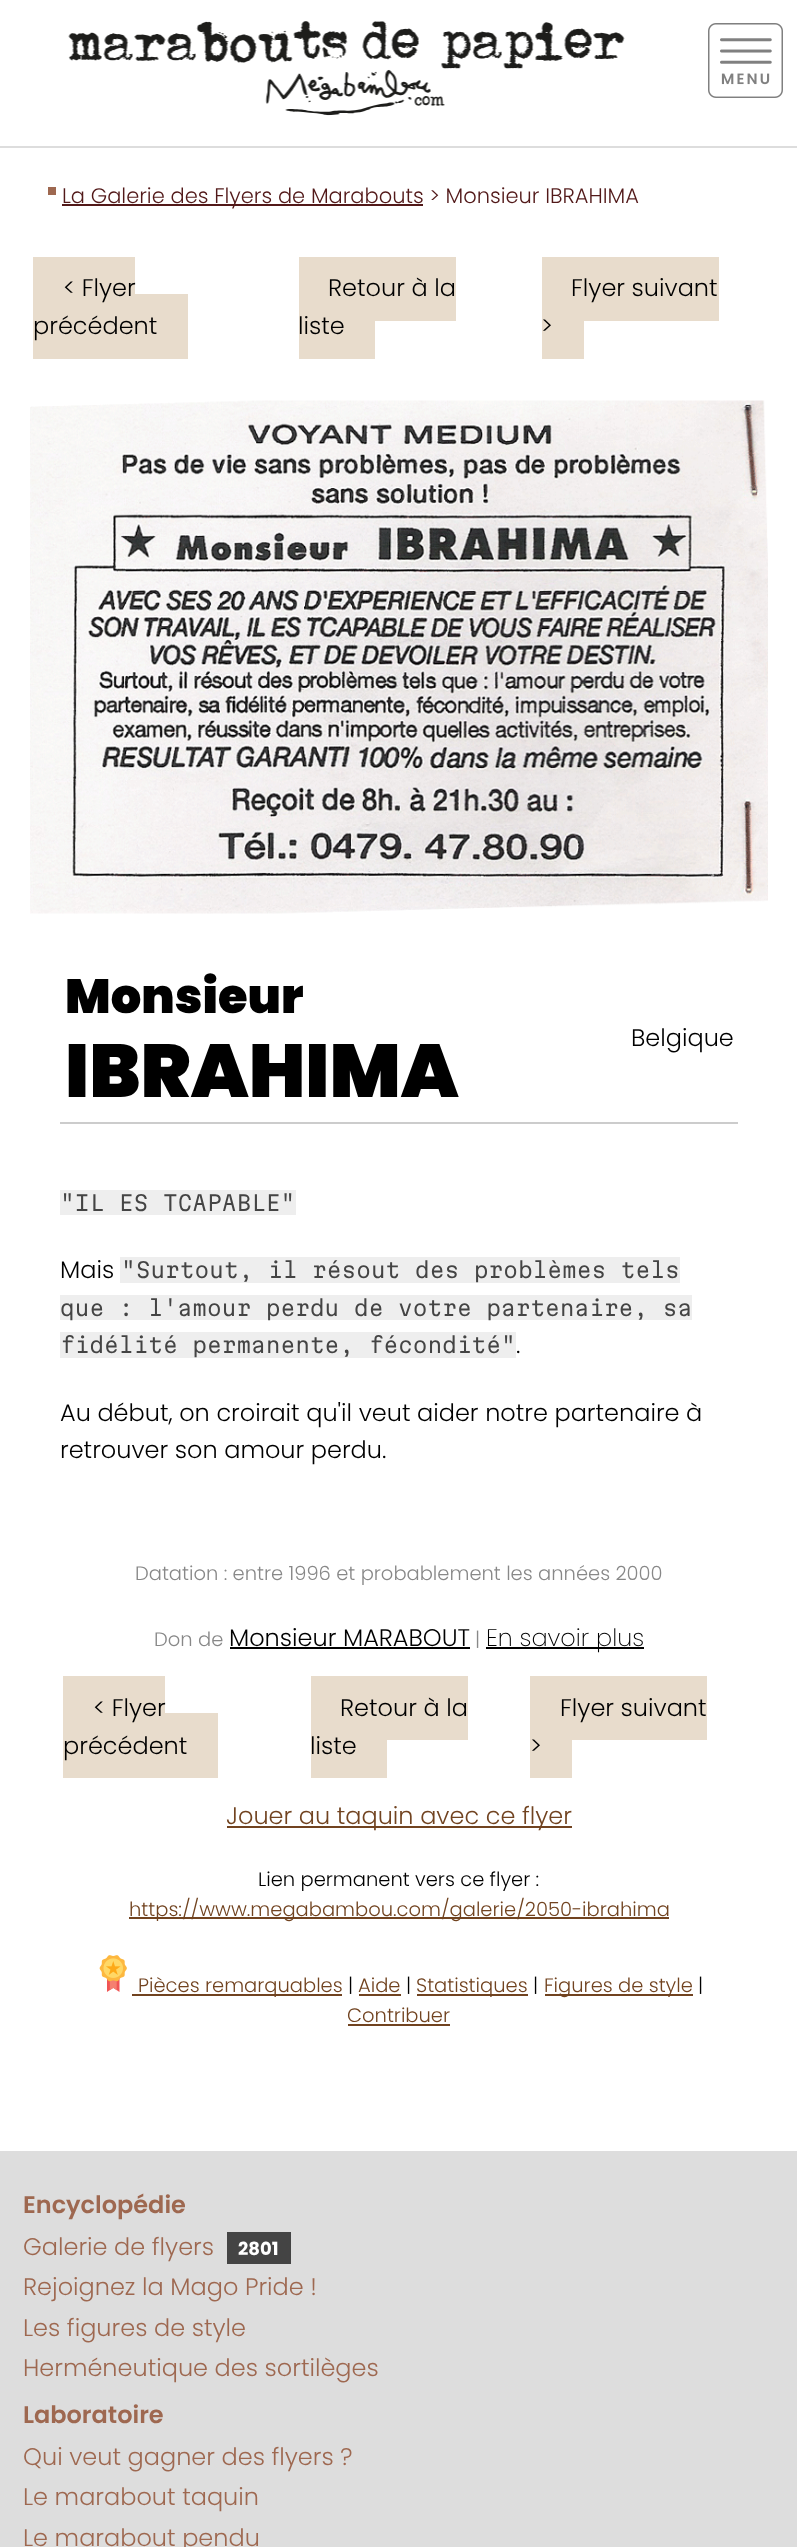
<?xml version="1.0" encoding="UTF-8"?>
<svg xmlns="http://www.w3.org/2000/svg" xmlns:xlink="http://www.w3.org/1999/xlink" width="797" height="2547">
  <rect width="100%" height="100%" fill="#ffffff" />
  <rect y="146" width="797" height="2" fill="#dddddd" />
  <image x="68" y="21" width="557" height="95" xlink:href="image1.png" />
  <image x="708" y="23" width="75" height="75" xlink:href="image2.png" />
  <rect x="48" y="187" width="8" height="8" fill="#9e6850" />
  <rect x="62" y="204" width="361" height="2" fill="#521919" />
  <rect x="33" y="257" width="102" height="37" fill="#e8dccc" />
  <rect x="33" y="294" width="155" height="65" fill="#e8dccc" />
  <rect x="299" y="257" width="157" height="64" fill="#e8dccc" />
  <rect x="299" y="321" width="76" height="38" fill="#e8dccc" />
  <rect x="542" y="257" width="177" height="64" fill="#e8dccc" />
  <rect x="542" y="321" width="42" height="38" fill="#e8dccc" />
  <image x="30" y="400" width="738" height="514" xlink:href="image3.png" />
  <rect x="60" y="1122" width="678" height="2" fill="#cccccc" />
  <rect x="60" y="1190" width="236" height="25" fill="#eeeeee" />
  <rect x="120" y="1257" width="560" height="26" fill="#eeeeee" />
  <rect x="60" y="1295" width="632" height="25" fill="#eeeeee" />
  <rect x="60" y="1332" width="456" height="26" fill="#eeeeee" />
  <rect x="230" y="1647" width="240" height="2" fill="#000000" />
  <rect x="486" y="1647" width="158" height="2" fill="#000000" />
  <rect x="63" y="1676" width="102" height="37" fill="#e8dccc" />
  <rect x="63" y="1713" width="155" height="65" fill="#e8dccc" />
  <rect x="311" y="1676" width="157" height="64" fill="#e8dccc" />
  <rect x="311" y="1740" width="76" height="38" fill="#e8dccc" />
  <rect x="530" y="1676" width="177" height="64" fill="#e8dccc" />
  <rect x="530" y="1740" width="42" height="38" fill="#e8dccc" />
  <rect x="227" y="1826" width="345" height="2" fill="#714320" />
  <rect x="129" y="1917" width="540" height="2" fill="#714320" />
  <image x="99" y="1955" width="28" height="37" xlink:href="image4.png" />
  <rect x="132" y="1994" width="210" height="2" fill="#714320" />
  <rect x="359" y="1994" width="42" height="2" fill="#714320" />
  <rect x="417" y="1994" width="111" height="2" fill="#714320" />
  <rect x="545" y="1994" width="148" height="2" fill="#714320" />
  <rect x="348" y="2024" width="102" height="2" fill="#714320" />
  <rect y="2151" width="797" height="396" fill="#dddddd" />
  <rect x="227" y="2232" width="64" height="32" fill="#444444" />
  <text x="62" y="203" style="font-family: Poppins; font-size: 21px; font-weight: 300; fill: #521919">La Galerie des Flyers de Marabouts &gt; Monsieur IBRAHIMA</text>
  <text x="63" y="296" style="font-family: Poppins; font-size: 24px; font-weight: 300; fill: #000000">&lt; Flyer</text>
  <text x="33" y="334" style="font-family: Poppins; font-size: 24px; font-weight: 300; fill: #000000">précédent</text>
  <text x="328" y="296" style="font-family: Poppins; font-size: 24px; font-weight: 300; fill: #000000">Retour à la</text>
  <text x="298" y="334" style="font-family: Poppins; font-size: 24px; font-weight: 300; fill: #000000">liste</text>
  <text x="571" y="296" style="font-family: Poppins; font-size: 24px; font-weight: 300; fill: #000000">Flyer suivant</text>
  <text x="541" y="334" style="font-family: Poppins; font-size: 24px; font-weight: 300; fill: #000000">&gt;</text>
  <text x="65" y="1013" style="font-family: Poppins; font-size: 48px; font-weight: 900; fill: #000000">Monsieur</text>
  <text x="65" y="1097" style="font-family: Poppins; font-size: 75px; font-weight: 900; fill: #000000">IBRAHIMA</text>
  <text x="631" y="1046" style="font-family: Poppins; font-size: 24px; font-weight: 300; fill: #000000">Belgique</text>
  <text x="60" y="1211" style="font-family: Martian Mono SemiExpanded; font-size: 21px; font-weight: 300; fill: #444444">"IL ES TCAPABLE"</text>
  <text x="60" y="1278" style="font-family: Poppins; font-size: 24px; font-weight: 300; fill: #000000">Mais</text>
  <text x="121" y="1278" style="font-family: Martian Mono SemiExpanded; font-size: 21px; font-weight: 300; fill: #444444">"Surtout, il résout des problèmes tels</text>
  <text x="60" y="1316" style="font-family: Martian Mono SemiExpanded; font-size: 21px; font-weight: 300; fill: #444444">que : l'amour perdu de votre partenaire, sa</text>
  <text x="60" y="1353" style="font-family: Martian Mono SemiExpanded; font-size: 21px; font-weight: 300; fill: #444444">fidélité permanente, fécondité"</text>
  <text x="516" y="1353" style="font-family: Poppins; font-size: 24px; font-weight: 300; fill: #000000">.</text>
  <text x="60" y="1421" style="font-family: Poppins; font-size: 24px; font-weight: 300; fill: #000000">Au début, on croirait qu'il veut aider notre partenaire à</text>
  <text x="60" y="1458" style="font-family: Poppins; font-size: 24px; font-weight: 300; fill: #000000">retrouver son amour perdu.</text>
  <text x="135" y="1580" style="font-family: Poppins; font-size: 19.5px; font-weight: 300; fill: #888888">Datation : entre 1996 et probablement les années 2000</text>
  <text x="154" y="1646" style="font-family: Poppins; font-size: 19.5px; font-weight: 300; fill: #888888">Don de</text>
  <text x="229" y="1646" style="font-family: Poppins; font-size: 24px; font-weight: 300; fill: #000000">Monsieur MARABOUT</text>
  <text x="475" y="1646" style="font-family: Poppins; font-size: 19.5px; font-weight: 300; fill: #888888">|</text>
  <text x="486" y="1646" style="font-family: Poppins; font-size: 24px; font-weight: 200; fill: #000000">En savoir plus</text>
  <text x="93" y="1716" style="font-family: Poppins; font-size: 24px; font-weight: 300; fill: #000000">&lt; Flyer</text>
  <text x="63" y="1754" style="font-family: Poppins; font-size: 24px; font-weight: 300; fill: #000000">précédent</text>
  <text x="340" y="1716" style="font-family: Poppins; font-size: 24px; font-weight: 300; fill: #000000">Retour à la</text>
  <text x="310" y="1754" style="font-family: Poppins; font-size: 24px; font-weight: 300; fill: #000000">liste</text>
  <text x="560" y="1716" style="font-family: Poppins; font-size: 24px; font-weight: 300; fill: #000000">Flyer suivant</text>
  <text x="530" y="1754" style="font-family: Poppins; font-size: 24px; font-weight: 300; fill: #000000">&gt;</text>
  <text x="226" y="1824" style="font-family: Poppins; font-size: 24px; font-weight: 300; fill: #714320">Jouer au taquin avec ce flyer</text>
  <text x="258" y="1886" style="font-family: Poppins; font-size: 19.5px; font-weight: 300; fill: #000000">Lien permanent vers ce flyer :</text>
  <text x="129" y="1916" style="font-family: Poppins; font-size: 19.5px; font-weight: 300; fill: #714320">https://www.megabambou.com/galerie/2050-ibrahima</text>
  <text x="138" y="1992" style="font-family: Poppins; font-size: 19.5px; font-weight: 300; fill: #714320">Pièces remarquables</text>
  <text x="348" y="1992" style="font-family: Poppins; font-size: 19.5px; font-weight: 300; fill: #000000">|</text>
  <text x="358" y="1992" style="font-family: Poppins; font-size: 19.5px; font-weight: 300; fill: #714320">Aide</text>
  <text x="406" y="1992" style="font-family: Poppins; font-size: 19.5px; font-weight: 300; fill: #000000">|</text>
  <text x="416" y="1992" style="font-family: Poppins; font-size: 19.5px; font-weight: 300; fill: #714320">Statistiques</text>
  <text x="533" y="1992" style="font-family: Poppins; font-size: 19.5px; font-weight: 300; fill: #000000">|</text>
  <text x="544" y="1992" style="font-family: Poppins; font-size: 19.5px; font-weight: 300; fill: #714320">Figures de style</text>
  <text x="698" y="1992" style="font-family: Poppins; font-size: 19.5px; font-weight: 300; fill: #000000">|</text>
  <text x="347" y="2022" style="font-family: Poppins; font-size: 19.5px; font-weight: 300; fill: #714320">Contribuer</text>
  <text x="23" y="2213" style="font-family: Poppins; font-size: 24px; font-weight: 600; fill: #9e6850">Encyclopédie</text>
  <text x="23" y="2255" style="font-family: Poppins; font-size: 24px; font-weight: 300; fill: #9e6850">Galerie de flyers</text>
  <text x="238" y="2255" style="font-family: Poppins; font-size: 18px; font-weight: bold; fill: #ffffff">2801</text>
  <text x="23" y="2295" style="font-family: Poppins; font-size: 24px; font-weight: 300; fill: #9e6850">Rejoignez la Mago Pride !</text>
  <text x="23" y="2336" style="font-family: Poppins; font-size: 24px; font-weight: 300; fill: #9e6850">Les figures de style</text>
  <text x="23" y="2376" style="font-family: Poppins; font-size: 24px; font-weight: 300; fill: #9e6850">Herméneutique des sortilèges</text>
  <text x="23" y="2423" style="font-family: Poppins; font-size: 24px; font-weight: 600; fill: #9e6850">Laboratoire</text>
  <text x="23" y="2465" style="font-family: Poppins; font-size: 24px; font-weight: 300; fill: #9e6850">Qui veut gagner des flyers ?</text>
  <text x="23" y="2505" style="font-family: Poppins; font-size: 24px; font-weight: 300; fill: #9e6850">Le marabout taquin</text>
  <text x="23" y="2546" style="font-family: Poppins; font-size: 24px; font-weight: 300; fill: #9e6850">Le marabout pendu</text>
</svg>
